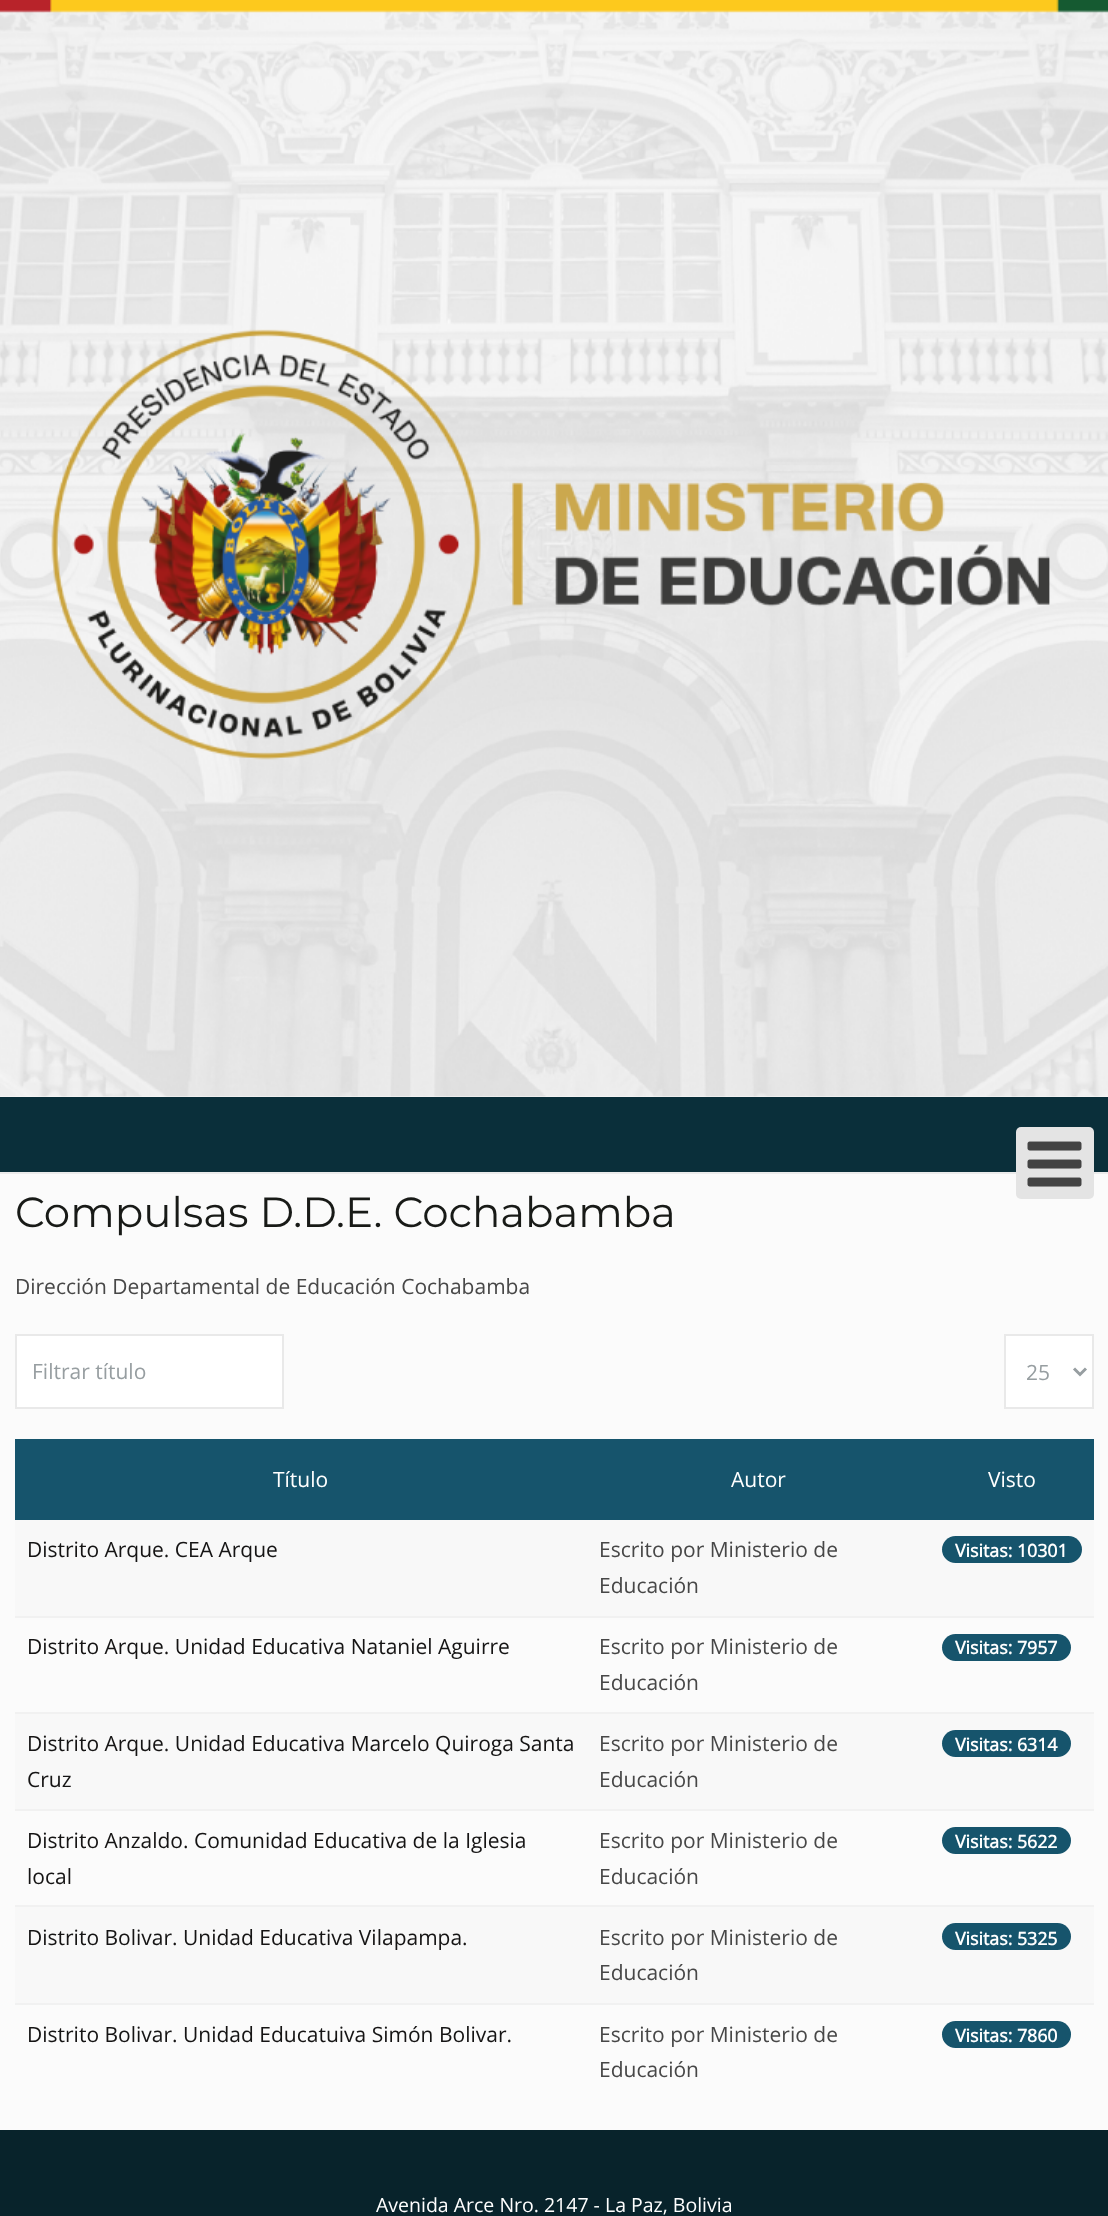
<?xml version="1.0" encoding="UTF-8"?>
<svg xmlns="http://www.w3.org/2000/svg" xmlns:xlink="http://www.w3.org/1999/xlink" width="1108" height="2216">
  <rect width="100%" height="100%" fill="#fbfbfb" />
  <image x="0" y="0" width="1108" height="1097" xlink:href="image1.png" />
  <rect y="1097" width="1108" height="75" fill="#0a2f3a" />
  <rect y="1172" width="1108" height="2" fill="#ebebeb" />
  <rect x="1016" y="1127" width="78" height="72" rx="5" fill="#e4e4e4" />
  <image x="1027" y="1141" width="55" height="46" xlink:href="image2.png" />
  <rect x="16" y="1335" width="267" height="73" fill="#ffffff" stroke="#e9e9e9" stroke-width="2" />
  <rect x="1005" y="1335" width="88" height="73" fill="#ffffff" stroke="#e9e9e9" stroke-width="2" />
  <path d="M 1074 1368.5 l 6 6 l 6 -6" fill="none" stroke="#979ea1" stroke-width="3" />
  <rect x="15" y="1439" width="1079" height="81" fill="#16546c" />
  <rect x="15" y="1520" width="1079" height="96" fill="#f8f8f8" />
  <rect x="942" y="1536" width="140" height="27" rx="13.5" fill="#16546c" />
  <rect x="15" y="1616" width="1079" height="2" fill="#f1f1f1" />
  <rect x="942" y="1634" width="129" height="27" rx="13.5" fill="#16546c" />
  <rect x="15" y="1714" width="1079" height="95" fill="#f8f8f8" />
  <rect x="15" y="1712" width="1079" height="2" fill="#f1f1f1" />
  <rect x="942" y="1730" width="129" height="27" rx="13.5" fill="#16546c" />
  <rect x="15" y="1809" width="1079" height="2" fill="#f1f1f1" />
  <rect x="942" y="1827" width="129" height="27" rx="13.5" fill="#16546c" />
  <rect x="15" y="1907" width="1079" height="96" fill="#f8f8f8" />
  <rect x="15" y="1905" width="1079" height="2" fill="#f1f1f1" />
  <rect x="942" y="1923" width="129" height="27" rx="13.5" fill="#16546c" />
  <rect x="15" y="2003" width="1079" height="2" fill="#f1f1f1" />
  <rect x="942" y="2021" width="129" height="27" rx="13.5" fill="#16546c" />
  <rect y="2130" width="1108" height="86" fill="#08232b" />
  <text x="15" y="1227" style="font-family: Montserrat; font-size: 42px; font-weight: 100; fill: #181a17">Compulsas D.D.E. Cochabamba</text>
  <text x="15" y="1294" style="font-family: Open Sans; font-size: 21px; fill: #474747">Dirección Departamental de Educación Cochabamba</text>
  <text x="32" y="1379" style="font-family: Open Sans; font-size: 21px; fill: #979ea1">Filtrar título</text>
  <text x="1026" y="1380" style="font-family: Open Sans; font-size: 21px; fill: #979ea1">25</text>
  <text x="273" y="1487" style="font-family: Open Sans; font-size: 21px; fill: #ffffff">Título</text>
  <text x="731" y="1487" style="font-family: Open Sans; font-size: 21px; fill: #ffffff">Autor</text>
  <text x="988" y="1487" style="font-family: Open Sans; font-size: 21px; fill: #ffffff">Visto</text>
  <text x="27" y="1557" style="font-family: Open Sans; font-size: 21px; fill: #151414">Distrito Arque. CEA Arque</text>
  <text x="599" y="1557" style="font-family: Open Sans; font-size: 21px; fill: #474747">Escrito por Ministerio de</text>
  <text x="599" y="1593" style="font-family: Open Sans; font-size: 21px; fill: #474747">Educación</text>
  <text x="955" y="1557" style="font-family: Open Sans; font-size: 17.75px; font-weight: bold; fill: #ffffff">Visitas: 10301</text>
  <text x="27" y="1654" style="font-family: Open Sans; font-size: 21px; fill: #151414">Distrito Arque. Unidad Educativa Nataniel Aguirre</text>
  <text x="599" y="1654" style="font-family: Open Sans; font-size: 21px; fill: #474747">Escrito por Ministerio de</text>
  <text x="599" y="1690" style="font-family: Open Sans; font-size: 21px; fill: #474747">Educación</text>
  <text x="955" y="1654" style="font-family: Open Sans; font-size: 17.75px; font-weight: bold; fill: #ffffff">Visitas: 7957</text>
  <text x="27" y="1751" style="font-family: Open Sans; font-size: 21px; fill: #151414">Distrito Arque. Unidad Educativa Marcelo Quiroga Santa</text>
  <text x="27" y="1787" style="font-family: Open Sans; font-size: 21px; fill: #151414">Cruz</text>
  <text x="599" y="1751" style="font-family: Open Sans; font-size: 21px; fill: #474747">Escrito por Ministerio de</text>
  <text x="599" y="1787" style="font-family: Open Sans; font-size: 21px; fill: #474747">Educación</text>
  <text x="955" y="1751" style="font-family: Open Sans; font-size: 17.75px; font-weight: bold; fill: #ffffff">Visitas: 6314</text>
  <text x="27" y="1848" style="font-family: Open Sans; font-size: 21px; fill: #151414">Distrito Anzaldo. Comunidad Educativa de la Iglesia</text>
  <text x="27" y="1884" style="font-family: Open Sans; font-size: 21px; fill: #151414">local</text>
  <text x="599" y="1848" style="font-family: Open Sans; font-size: 21px; fill: #474747">Escrito por Ministerio de</text>
  <text x="599" y="1884" style="font-family: Open Sans; font-size: 21px; fill: #474747">Educación</text>
  <text x="955" y="1848" style="font-family: Open Sans; font-size: 17.75px; font-weight: bold; fill: #ffffff">Visitas: 5622</text>
  <text x="27" y="1945" style="font-family: Open Sans; font-size: 21px; fill: #151414">Distrito Bolivar. Unidad Educativa Vilapampa.</text>
  <text x="599" y="1945" style="font-family: Open Sans; font-size: 21px; fill: #474747">Escrito por Ministerio de</text>
  <text x="599" y="1980" style="font-family: Open Sans; font-size: 21px; fill: #474747">Educación</text>
  <text x="955" y="1945" style="font-family: Open Sans; font-size: 17.75px; font-weight: bold; fill: #ffffff">Visitas: 5325</text>
  <text x="27" y="2042" style="font-family: Open Sans; font-size: 21px; fill: #151414">Distrito Bolivar. Unidad Educatuiva Simón Bolivar.</text>
  <text x="599" y="2042" style="font-family: Open Sans; font-size: 21px; fill: #474747">Escrito por Ministerio de</text>
  <text x="599" y="2077" style="font-family: Open Sans; font-size: 21px; fill: #474747">Educación</text>
  <text x="955" y="2042" style="font-family: Open Sans; font-size: 17.75px; font-weight: bold; fill: #ffffff">Visitas: 7860</text>
  <text x="376" y="2212" style="font-family: Open Sans; font-size: 19.5px; fill: #ffffff">Avenida Arce Nro. 2147 - La Paz, Bolivia</text>
</svg>
